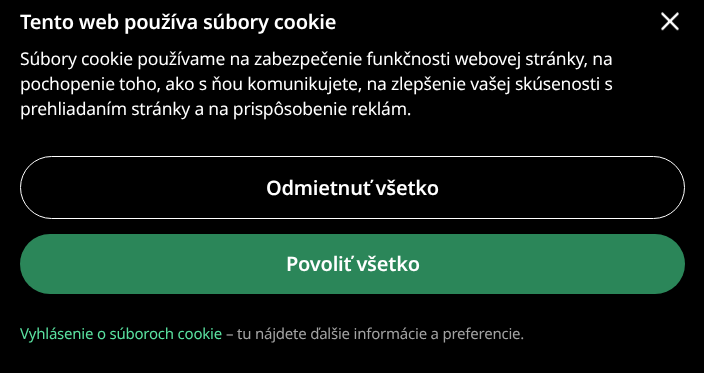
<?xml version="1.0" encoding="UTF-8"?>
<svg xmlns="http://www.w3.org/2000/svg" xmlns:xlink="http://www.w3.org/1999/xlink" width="704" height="373">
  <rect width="100%" height="100%" fill="#000000" />
  <image x="661" y="12" width="18" height="19" xlink:href="image1.png" />
  <rect x="20.5" y="156.5" width="664" height="62" rx="31" fill="none" stroke="#ffffff" />
  <rect x="20" y="234" width="665" height="60" rx="30" fill="#2b8659" />
  <text x="20" y="29" style="font-family: Noto Sans; font-size: 20px; font-weight: 600; letter-spacing: -0.22px; fill: #ffffff">Tento web používa súbory cookie</text>
  <text x="20" y="65" style="font-family: Noto Sans; font-size: 17.5px; letter-spacing: -0.22px; fill: #ffffff">Súbory cookie používame na zabezpečenie funkčnosti webovej stránky, na</text>
  <text x="20" y="90" style="font-family: Noto Sans; font-size: 17.5px; letter-spacing: -0.22px; fill: #ffffff">pochopenie toho, ako s ňou komunikujete, na zlepšenie vašej skúsenosti s</text>
  <text x="20" y="115" style="font-family: Noto Sans; font-size: 17.5px; letter-spacing: -0.22px; fill: #ffffff">prehliadaním stránky a na prispôsobenie reklám.</text>
  <text x="266" y="195" style="font-family: Noto Sans; font-size: 20px; font-weight: 600; letter-spacing: -0.22px; fill: #ffffff">Odmietnuť všetko</text>
  <text x="286" y="271" style="font-family: Noto Sans; font-size: 20px; font-weight: 600; letter-spacing: -0.22px; fill: #ffffff">Povoliť všetko</text>
  <text x="20" y="339" style="font-family: Noto Sans; font-size: 15px; letter-spacing: -0.22px; fill: #5ae1a0">Vyhlásenie o súboroch cookie</text>
  <text x="226" y="339" style="font-family: Noto Sans; font-size: 15px; letter-spacing: -0.22px; fill: #a3a3a3">– tu nájdete ďalšie informácie a preferencie.</text>
</svg>
